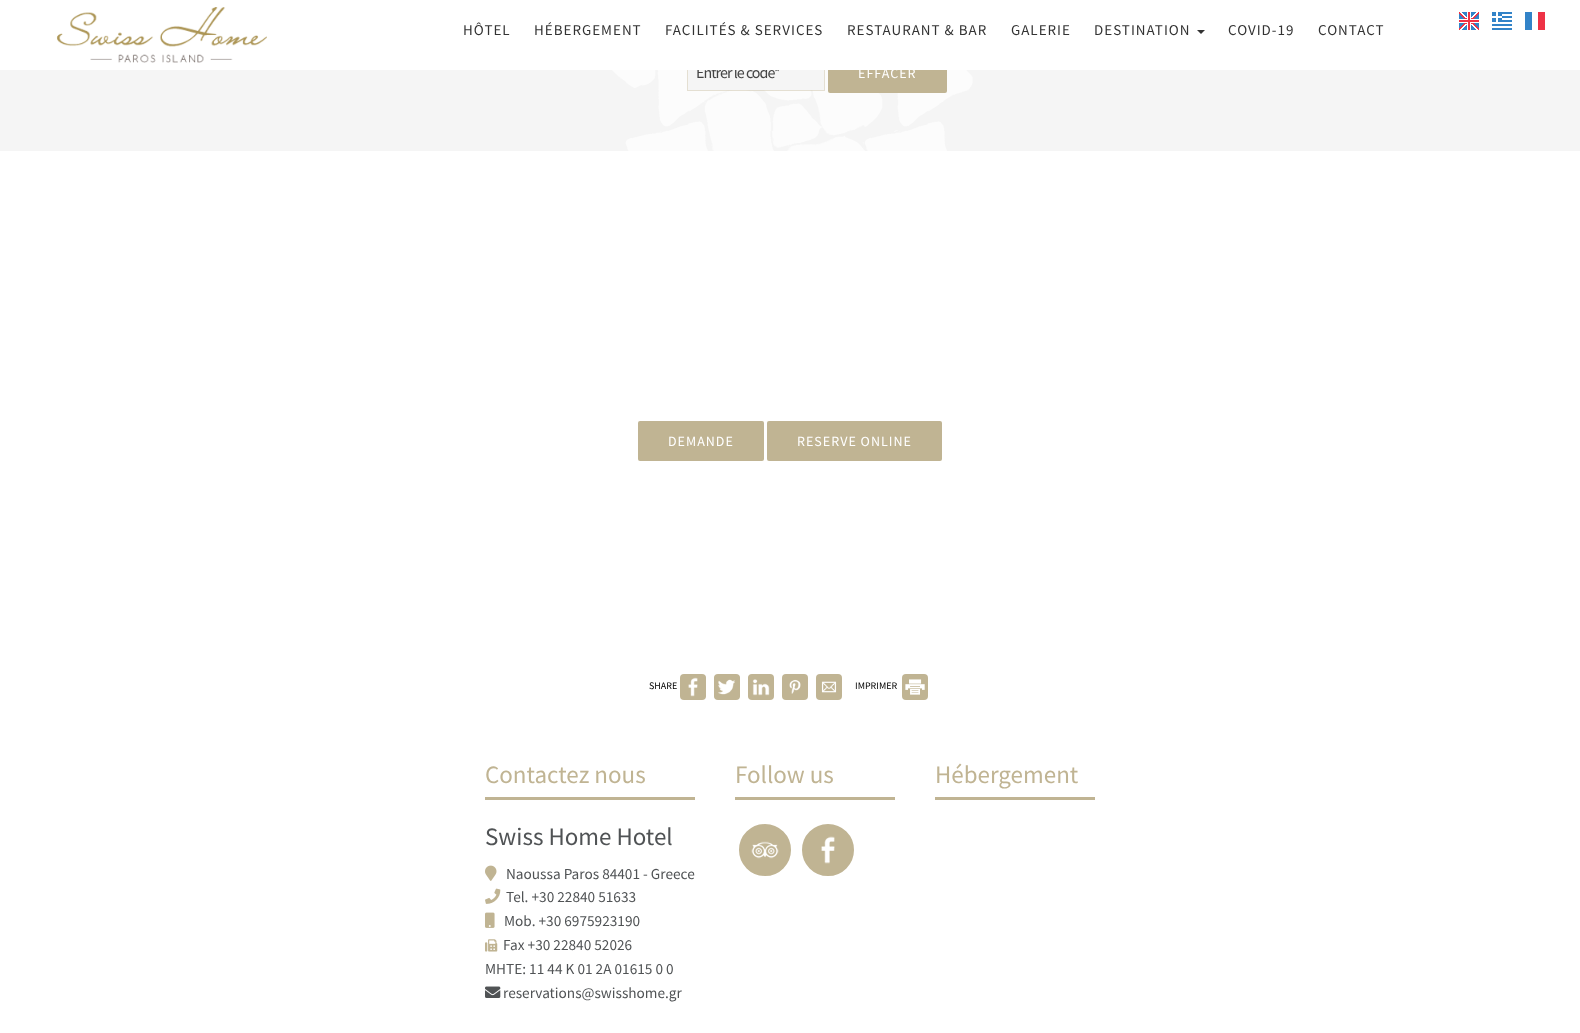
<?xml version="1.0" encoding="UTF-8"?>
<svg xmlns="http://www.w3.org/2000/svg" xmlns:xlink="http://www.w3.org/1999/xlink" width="1580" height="1033">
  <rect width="100%" height="100%" fill="#f5f5f5" />
  <image x="611" y="70" width="362" height="81" xlink:href="image5.png" />
  <rect x="688" y="70" width="136" height="20" fill="#f5f5f5" />
  <rect x="687.5" y="53.5" width="137" height="37" fill="none" stroke="#c0b493" stroke-opacity="0.4" />
  <rect x="828" y="53" width="119" height="40" rx="2" fill="#c0b493" />
  <rect y="151" width="1580" height="882" fill="#ffffff" />
  <rect x="638" y="421" width="126" height="40" rx="2" fill="#c0b493" />
  <rect x="767" y="421" width="175" height="40" rx="2" fill="#c0b493" />
  <rect x="680" y="674" width="26" height="26" rx="4" fill="#c0b493" />
  <image x="688" y="677" width="10" height="20" xlink:href="image6.png" />
  <rect x="714" y="674" width="26" height="26" rx="4" fill="#c0b493" />
  <image x="718" y="679" width="17" height="16" xlink:href="image7.png" />
  <rect x="748" y="674" width="26" height="26" rx="4" fill="#c0b493" />
  <image x="752" y="679" width="18" height="17" xlink:href="image8.png" />
  <rect x="782" y="674" width="26" height="26" rx="4" fill="#c0b493" />
  <image x="789" y="679" width="12" height="15" xlink:href="image9.png" />
  <rect x="816" y="674" width="26" height="26" rx="4" fill="#c0b493" />
  <image x="821" y="681" width="16" height="12" xlink:href="image10.png" />
  <rect x="902" y="674" width="26" height="26" rx="4" fill="#c0b493" />
  <image x="905" y="679" width="20" height="16" xlink:href="image11.png" />
  <rect x="485" y="797" width="210" height="3" fill="#c0b493" />
  <image x="485" y="865" width="12" height="16" xlink:href="image12.png" />
  <image x="485" y="888" width="16" height="16" xlink:href="image13.png" />
  <image x="485" y="912" width="10" height="16" xlink:href="image14.png" />
  <image x="485" y="939" width="13" height="13" xlink:href="image15.png" />
  <image x="485" y="986" width="16" height="12" xlink:href="image16.png" />
  <rect x="735" y="797" width="160" height="3" fill="#c0b493" />
  <circle cx="765" cy="850" r="25" fill="#c0b493" stroke="#c0b493" stroke-width="2" />
  <image x="751" y="841" width="28" height="18" xlink:href="image17.png" />
  <circle cx="828" cy="850" r="25" fill="#c0b493" stroke="#c0b493" stroke-width="2" />
  <image x="821" y="836" width="14" height="28" xlink:href="image18.png" />
  <rect x="935" y="797" width="160" height="3" fill="#c0b493" />
  <text x="696" y="78" style="font-family: Source Sans Pro; font-size: 16px; letter-spacing: -1px; fill: #444444">Entrer le code*</text>
  <rect width="1580" height="70" fill="#ffffff" />
  <image x="56" y="7" width="211" height="56" xlink:href="image1.png" />
  <image x="1525" y="12" width="20" height="18" xlink:href="image4.png" />
  <image x="1492" y="12" width="20" height="18" xlink:href="image3.png" />
  <image x="1459" y="12" width="20" height="18" xlink:href="image2.png" />
  <text x="1318" y="35" style="font-family: Source Sans Pro; font-size: 15px; letter-spacing: 1px; fill: #333333">CONTACT</text>
  <text x="1228" y="35" style="font-family: Source Sans Pro; font-size: 15px; letter-spacing: 1px; fill: #333333">COVID-19</text>
  <path d="M 1197 30 h 8 l -4 4 z" fill="#333333" />
  <text x="1094" y="35" style="font-family: Source Sans Pro; font-size: 15px; letter-spacing: 1px; fill: #333333">DESTINATION</text>
  <text x="1011" y="35" style="font-family: Source Sans Pro; font-size: 15px; letter-spacing: 1px; fill: #333333">GALERIE</text>
  <text x="847" y="35" style="font-family: Source Sans Pro; font-size: 15px; letter-spacing: 1px; fill: #333333">RESTAURANT &amp; BAR</text>
  <text x="665" y="35" style="font-family: Source Sans Pro; font-size: 15px; letter-spacing: 1px; fill: #333333">FACILITÉS &amp; SERVICES</text>
  <text x="534" y="35" style="font-family: Source Sans Pro; font-size: 15px; letter-spacing: 1px; fill: #333333">HÉBERGEMENT</text>
  <text x="463" y="35" style="font-family: Source Sans Pro; font-size: 15px; letter-spacing: 1px; fill: #333333">HÔTEL</text>
  <text x="858" y="78" style="font-family: Source Sans Pro; font-size: 14px; letter-spacing: 1px; fill: #ffffff">EFFACER</text>
  <text x="668" y="446" style="font-family: Source Sans Pro; font-size: 14px; letter-spacing: 1px; fill: #ffffff">DEMANDE</text>
  <text x="797" y="446" style="font-family: Source Sans Pro; font-size: 14px; letter-spacing: 1px; fill: #ffffff">RESERVE ONLINE</text>
  <text x="649" y="689" style="font-family: Source Sans Pro; font-size: 10px; fill: #000000">SHARE</text>
  <text x="855" y="689" style="font-family: Source Sans Pro; font-size: 10px; fill: #000000">IMPRIMER</text>
  <text x="485" y="783" style="font-family: Source Sans Pro; font-size: 25px; fill: #c0b493">Contactez nous</text>
  <text x="485" y="845" style="font-family: Source Sans Pro; font-size: 25px; fill: #505355">Swiss Home Hotel</text>
  <text x="506" y="879" style="font-family: Source Sans Pro; font-size: 15.25px; fill: #505355">Naoussa Paros 84401 - Greece</text>
  <text x="506" y="902" style="font-family: Source Sans Pro; font-size: 15.25px; fill: #505355">Tel. +30 22840 51633</text>
  <text x="504" y="926" style="font-family: Source Sans Pro; font-size: 15.25px; fill: #505355">Mob. +30 6975923190</text>
  <text x="503" y="950" style="font-family: Source Sans Pro; font-size: 15.25px; fill: #505355">Fax +30 22840 52026</text>
  <text x="485" y="974" style="font-family: Source Sans Pro; font-size: 15.25px; fill: #505355">ΜΗΤΕ: 11 44 Κ 01 2Α 01615 0 0</text>
  <text x="503" y="998" style="font-family: Source Sans Pro; font-size: 15.25px; fill: #505355">reservations@swisshome.gr</text>
  <text x="735" y="783" style="font-family: Source Sans Pro; font-size: 25px; fill: #c0b493">Follow us</text>
  <text x="935" y="783" style="font-family: Source Sans Pro; font-size: 25px; fill: #c0b493">Hébergement</text>
</svg>
